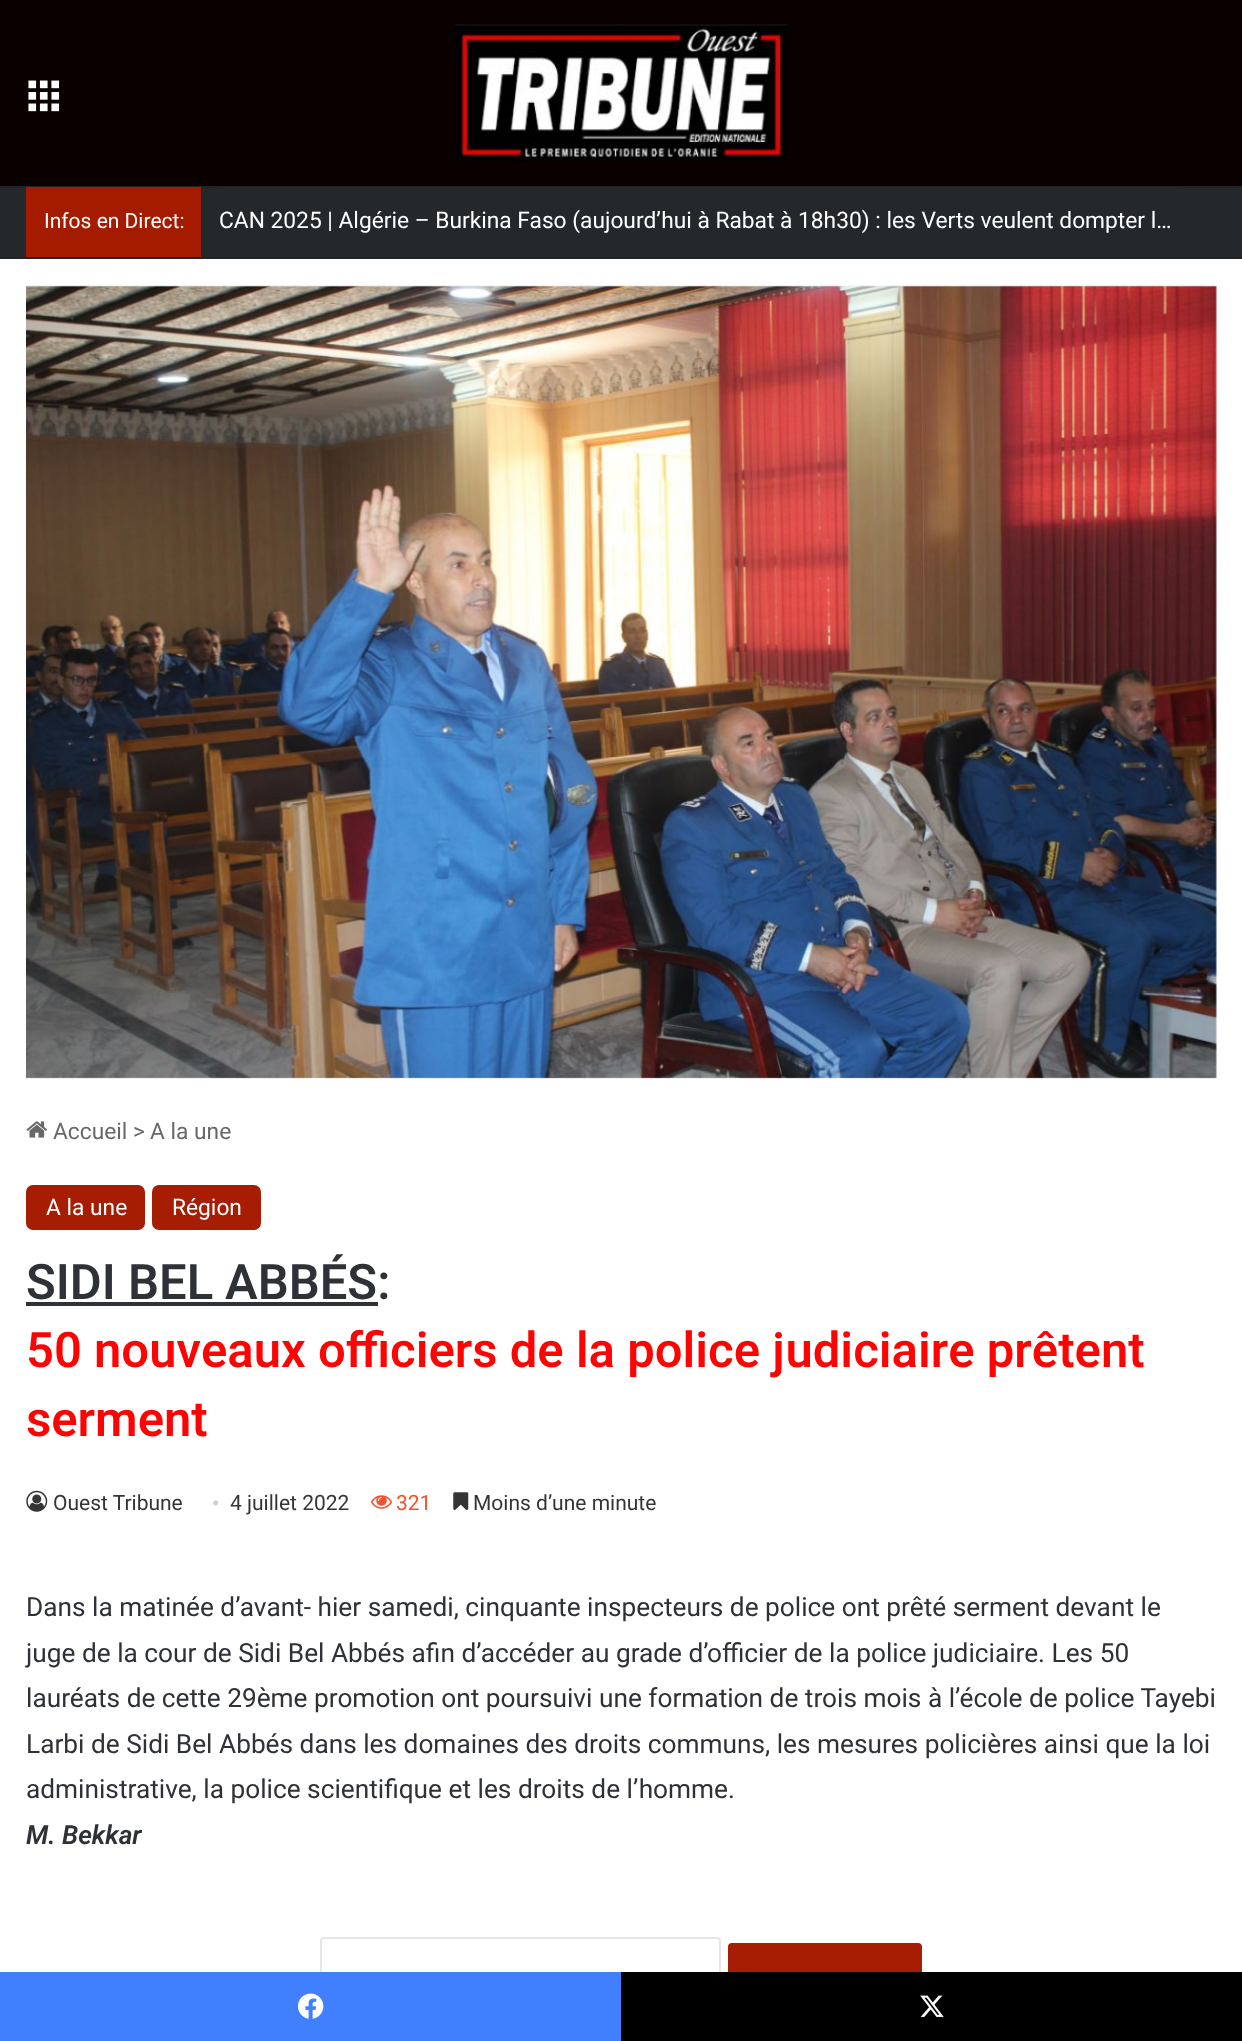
<?xml version="1.0" encoding="UTF-8"?>
<svg xmlns="http://www.w3.org/2000/svg" xmlns:xlink="http://www.w3.org/1999/xlink" width="1242" height="2041">
  <rect width="100%" height="100%" fill="#ffffff" />
  <rect width="1242" height="186" fill="#0a0000" />
  <image x="28" y="80" width="32" height="32" xlink:href="image1.png" />
  <image x="455" y="24" width="333" height="137" xlink:href="image2.png" />
  <rect y="188" width="1242" height="69" fill="#25282b" />
  <rect y="186" width="1242" height="2" fill="#212427" />
  <rect y="257" width="1242" height="2" fill="#212427" />
  <rect x="26" y="187" width="175" height="70" fill="#a51b00" />
  <rect x="219" y="187" width="962" height="1" fill="#25282b" />
  <image x="26" y="285" width="1191" height="794" xlink:href="image3.png" />
  <image x="26" y="1121" width="21" height="17" xlink:href="image4.png" />
  <rect x="26" y="1185" width="119" height="45" rx="7" fill="#a61d03" />
  <rect x="152" y="1185" width="109" height="45" rx="7" fill="#a61d03" />
  <rect x="26" y="1302" width="352" height="4" fill="#2e3136" />
  <image x="26" y="1490" width="22" height="22" xlink:href="image5.png" />
  <image x="371" y="1495" width="21" height="14" xlink:href="image6.png" />
  <image x="453" y="1492" width="16" height="18" xlink:href="image7.png" />
  <rect x="321" y="1938" width="399" height="77" rx="3" fill="none" stroke="#e6e6e6" stroke-width="2" />
  <rect x="728" y="1943" width="194" height="71" rx="4" fill="#a61d03" />
  <rect y="1972" width="621" height="69" fill="#4080ff" />
  <image x="297" y="1993" width="27" height="26" xlink:href="image8.png" />
  <rect x="621" y="1972" width="621" height="69" fill="#000000" />
  <image x="920" y="1995" width="24" height="22" xlink:href="image9.png" />
  <text x="44" y="228" style="font-family: Roboto; font-size: 21px; fill: #ffffff">Infos en Direct:</text>
  <text x="219" y="228" style="font-family: Roboto; font-size: 22.75px; fill: #ffffff">CAN 2025 | Algérie – Burkina Faso (aujourd’hui à Rabat à 18h30) : les Verts veulent dompter l…</text>
  <text x="53" y="1139" style="font-family: Roboto; font-size: 22.75px; fill: #686868">Accueil</text>
  <text x="133" y="1139" style="font-family: Roboto; font-size: 22.75px; fill: #686868">&gt;</text>
  <text x="150" y="1139" style="font-family: Roboto; font-size: 22.75px; fill: #686868">A la une</text>
  <text x="46" y="1215" style="font-family: Roboto; font-size: 22.75px; fill: #ffffff">A la une</text>
  <text x="172" y="1215" style="font-family: Roboto; font-size: 22.75px; fill: #ffffff">Région</text>
  <text x="26" y="1299" style="font-family: Heebo; font-size: 49px; font-weight: 600; fill: #2e3136">SIDI BEL ABBÉS:</text>
  <text x="26" y="1367" style="font-family: Heebo; font-size: 49px; font-weight: 600; fill: #ff0303">50 nouveaux officiers de la police judiciaire prêtent</text>
  <text x="26" y="1436" style="font-family: Heebo; font-size: 49px; font-weight: 600; fill: #ff0303">serment</text>
  <text x="53" y="1510" style="font-family: Roboto; font-size: 21px; fill: #353535">Ouest Tribune</text>
  <text x="212" y="1510" style="font-family: Liberation Serif; font-size: 21px; fill: #cdcdcd">•</text>
  <text x="230" y="1510" style="font-family: Roboto; font-size: 21px; fill: #353535">4 juillet 2022</text>
  <text x="396" y="1510" style="font-family: Roboto; font-size: 21px; fill: #f3522c">321</text>
  <text x="473" y="1510" style="font-family: Roboto; font-size: 21px; fill: #353535">Moins d’une minute</text>
  <text x="26" y="1616" style="font-family: Roboto; font-size: 26.25px; fill: #2e3136">Dans la matinée d’avant- hier samedi, cinquante inspecteurs de police ont prêté serment devant le</text>
  <text x="26" y="1662" style="font-family: Roboto; font-size: 26.25px; fill: #2e3136">juge de la cour de Sidi Bel Abbés afin d’accéder au grade d’officier de la police judiciaire. Les 50</text>
  <text x="26" y="1707" style="font-family: Roboto; font-size: 26.25px; fill: #2e3136">lauréats de cette 29ème promotion ont poursuivi une formation de trois mois à l’école de police Tayebi</text>
  <text x="26" y="1753" style="font-family: Roboto; font-size: 26.25px; fill: #2e3136">Larbi de Sidi Bel Abbés dans les domaines des droits communs, les mesures policières ainsi que la loi</text>
  <text x="26" y="1798" style="font-family: Roboto; font-size: 26.25px; fill: #2e3136">administrative, la police scientifique et les droits de l’homme.</text>
  <text x="26" y="1844" style="font-family: Roboto; font-size: 26.25px; font-weight: 600; font-style: italic; fill: #2e3136">M. Bekkar</text>
</svg>
